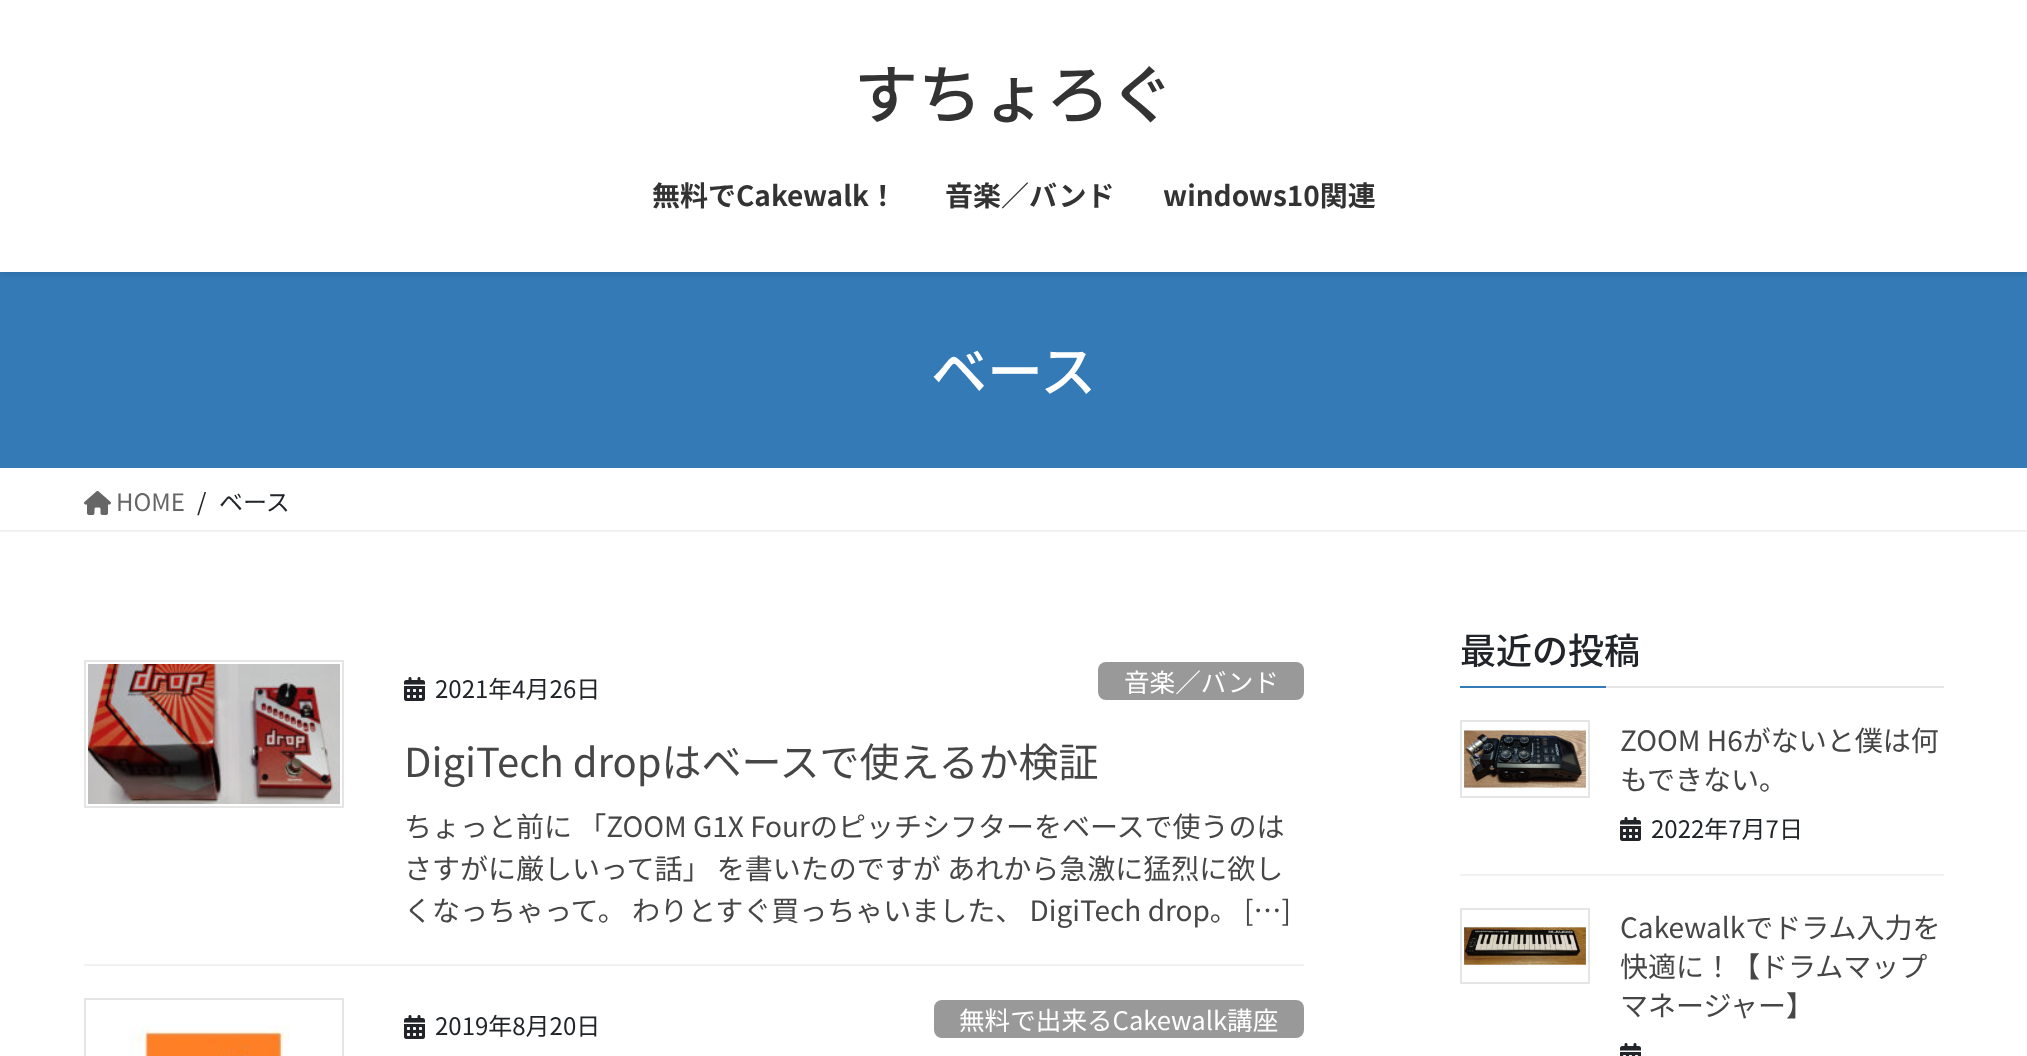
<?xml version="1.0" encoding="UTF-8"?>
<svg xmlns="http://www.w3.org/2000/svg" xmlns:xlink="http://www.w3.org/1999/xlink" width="2027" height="1056">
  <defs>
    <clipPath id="clip1"><rect x="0" y="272" width="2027" height="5" /></clipPath>
  </defs>
  <rect width="100%" height="100%" fill="#ffffff" />
  <rect y="272" width="2027" height="196" fill="#337ab7" />
  <g clip-path="url(#clip1)">
    <rect y="2" width="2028" height="272" fill="#000000" fill-opacity="0.1" filter="blur(3px)" />
  </g>
  <rect y="530" width="2027" height="2" fill="#f2f2f2" />
  <image x="84" y="491" width="27" height="24" xlink:href="image1.png" />
  <rect x="84" y="964" width="1220" height="2" fill="#f2f2f2" />
  <rect x="85" y="661" width="258" height="146" fill="none" stroke="#e5e5e5" stroke-width="2" />
  <image x="88" y="664" width="252" height="140" xlink:href="image2.png" />
  <image x="404" y="677" width="21" height="24" xlink:href="image3.png" />
  <rect x="1098" y="662" width="206" height="38" rx="8" fill="#999999" />
  <rect x="85" y="999" width="258" height="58" fill="none" stroke="#e5e5e5" stroke-width="2" />
  <image x="128" y="1025" width="162" height="31" xlink:href="image4.png" />
  <image x="404" y="1015" width="21" height="24" xlink:href="image3.png" />
  <rect x="934" y="1000" width="370" height="38" rx="8" fill="#999999" />
  <rect x="1606" y="686" width="338" height="2" fill="#e6e6e6" />
  <rect x="1460" y="686" width="146" height="2" fill="#337ab7" />
  <rect x="1460" y="874" width="484" height="2" fill="#f2f2f2" />
  <rect x="1461" y="721" width="128" height="76" fill="none" stroke="#e5e5e5" stroke-width="2" />
  <image x="1464" y="729" width="122" height="60" xlink:href="image5.png" />
  <image x="1620" y="817" width="21" height="24" xlink:href="image3.png" />
  <rect x="1461" y="909" width="128" height="74" fill="none" stroke="#e5e5e5" stroke-width="2" />
  <image x="1464" y="926" width="122" height="40" xlink:href="image6.png" />
  <image x="1620" y="1043" width="21" height="13" xlink:href="image7.png" />
  <text x="854" y="118" style="font-family: Noto Sans JP; font-size: 64px; font-weight: 500; fill: #333333">すちょろぐ</text>
  <text x="652" y="206" style="font-family: Noto Sans JP; font-size: 28px; font-weight: bold; fill: #333333">無料でCakewalk！</text>
  <text x="945" y="206" style="font-family: Noto Sans JP; font-size: 28px; font-weight: bold; fill: #333333">音楽／バンド</text>
  <text x="1163" y="206" style="font-family: Noto Sans JP; font-size: 28px; font-weight: bold; fill: #333333">windows10関連</text>
  <text x="931" y="392" style="font-family: Noto Sans JP; font-size: 56px; font-weight: 500; fill: #ffffff">ベース</text>
  <text x="116" y="511" style="font-family: Noto Sans JP; font-size: 24px; fill: #666666">HOME</text>
  <text x="197" y="511" style="font-family: Noto Sans JP; font-size: 24px; fill: #212529">/</text>
  <text x="219" y="511" style="font-family: Noto Sans JP; font-size: 24px; fill: #212529">ベース</text>
  <text x="435" y="698" style="font-family: Noto Sans JP; font-size: 24px; fill: #212529">2021年4月26日</text>
  <text x="1124" y="692" style="font-family: Noto Sans JP; font-size: 25.6px; fill: #ffffff">音楽／バンド</text>
  <text x="404" y="777" style="font-family: Noto Sans JP; font-size: 40px; fill: #464646">DigiTech dropはベースで使えるか検証</text>
  <text x="404" y="837" style="font-family: Noto Sans JP; font-size: 28px; fill: #464646">ちょっと前に 「ZOOM G1X Fourのピッチシフターをベースで使うのは</text>
  <text x="404" y="879" style="font-family: Noto Sans JP; font-size: 28px; fill: #464646">さすがに厳しいって話」 を書いたのですが あれから急激に猛烈に欲し</text>
  <text x="404" y="921" style="font-family: Noto Sans JP; font-size: 28px; fill: #464646">くなっちゃって。 わりとすぐ買っちゃいました、 DigiTech drop。 […]</text>
  <text x="435" y="1035" style="font-family: Noto Sans JP; font-size: 24px; fill: #212529">2019年8月20日</text>
  <text x="959" y="1030" style="font-family: Noto Sans JP; font-size: 25.6px; fill: #ffffff">無料で出来るCakewalk講座</text>
  <text x="1460" y="664" style="font-family: Noto Sans JP; font-size: 36px; font-weight: 500; fill: #212529">最近の投稿</text>
  <text x="1620" y="751" style="font-family: Noto Sans JP; font-size: 28px; fill: #464646">ZOOM H6がないと僕は何</text>
  <text x="1620" y="790" style="font-family: Noto Sans JP; font-size: 28px; fill: #464646">もできない。</text>
  <text x="1651" y="838" style="font-family: Noto Sans JP; font-size: 24px; fill: #212529">2022年7月7日</text>
  <text x="1620" y="938" style="font-family: Noto Sans JP; font-size: 28px; fill: #464646">Cakewalkでドラム入力を</text>
  <text x="1620" y="977" style="font-family: Noto Sans JP; font-size: 28px; fill: #464646">快適に！【ドラムマップ</text>
  <text x="1620" y="1016" style="font-family: Noto Sans JP; font-size: 28px; fill: #464646">マネージャー】</text>
</svg>
